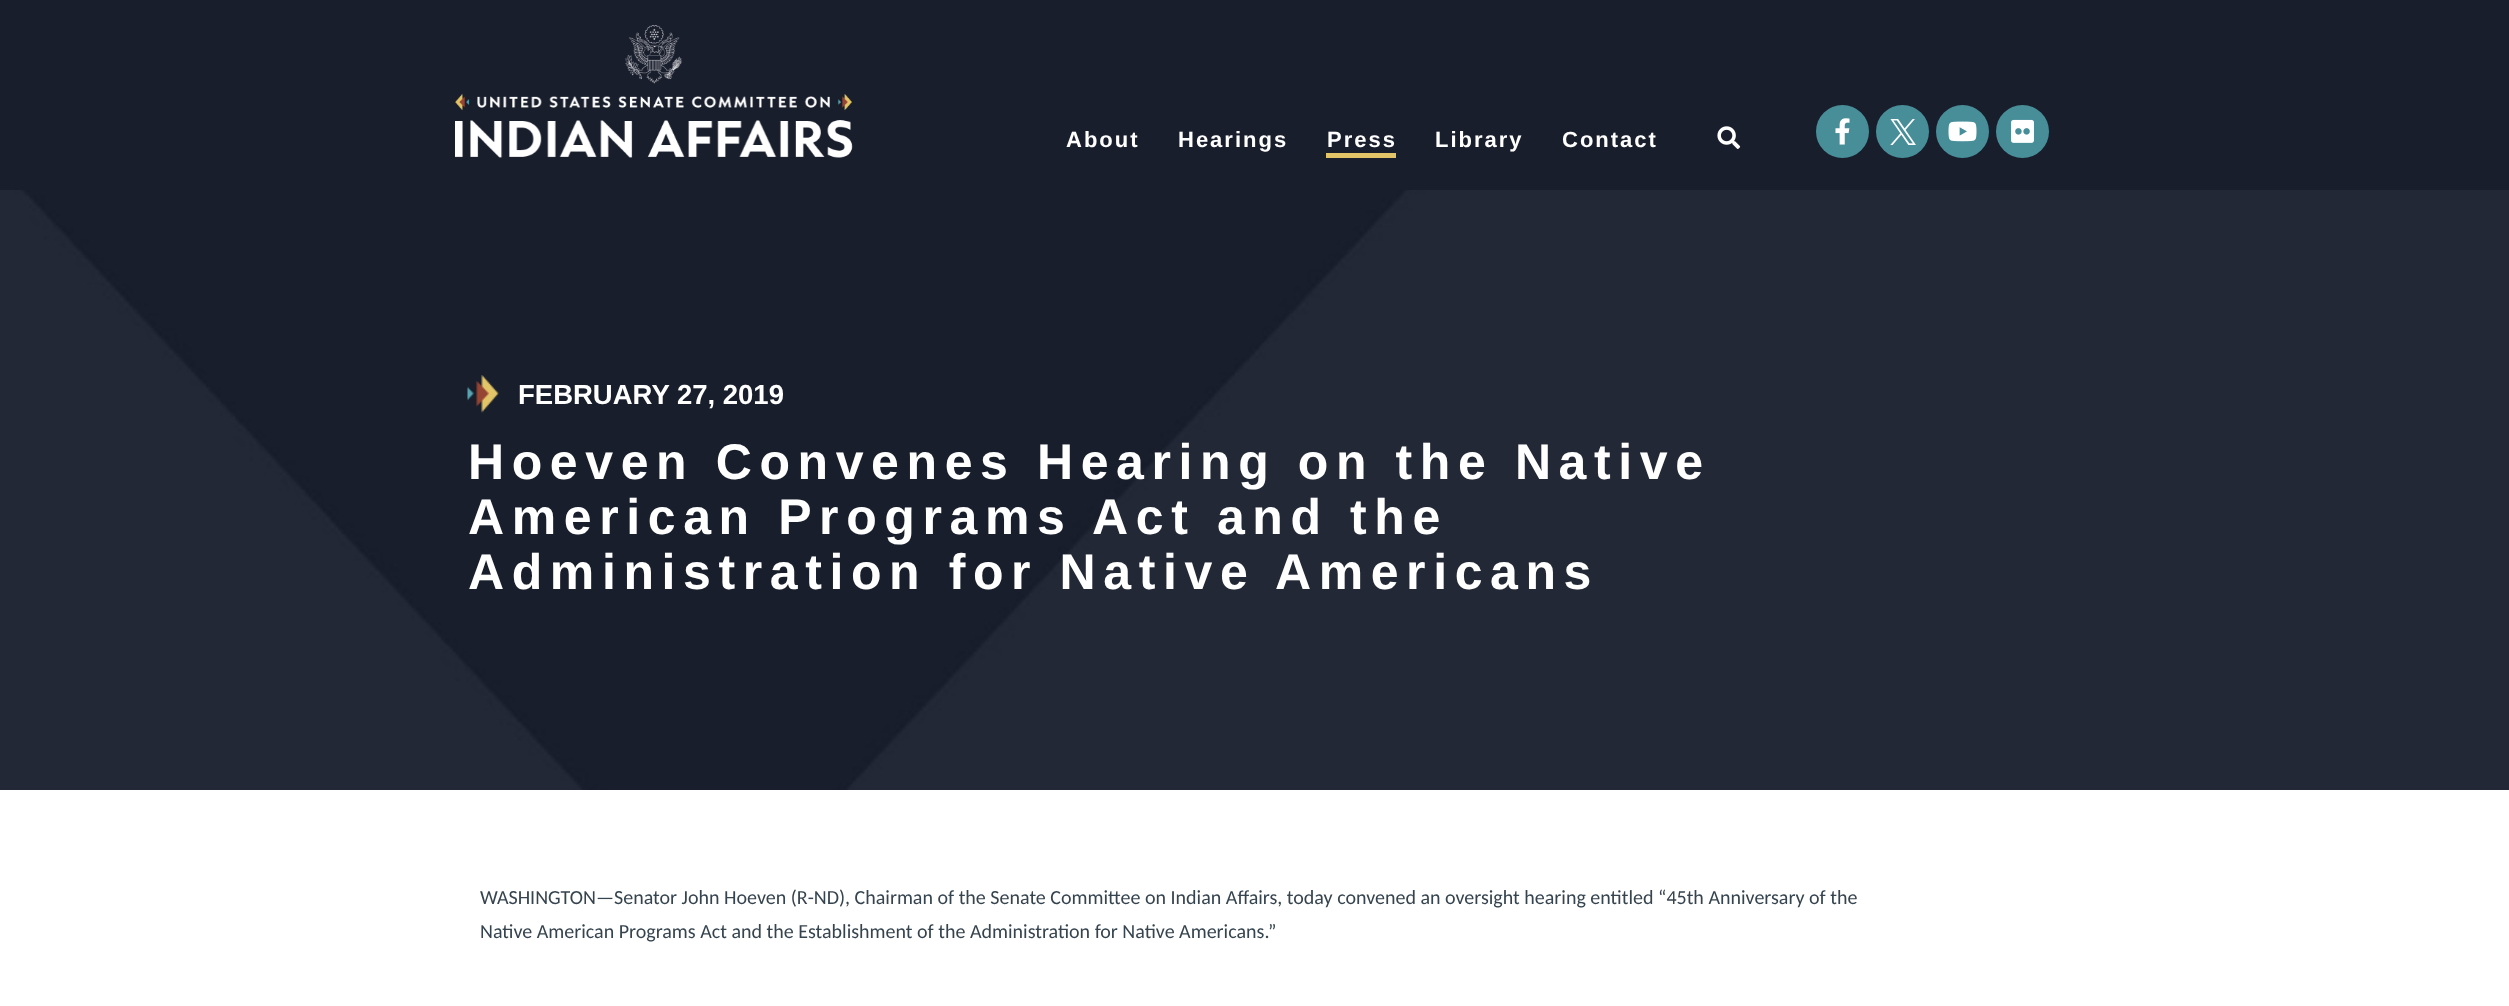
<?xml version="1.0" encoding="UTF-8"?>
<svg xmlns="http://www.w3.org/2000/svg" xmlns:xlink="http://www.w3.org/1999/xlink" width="2509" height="1006">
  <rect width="100%" height="100%" fill="#ffffff" />
  <rect width="2509" height="190" fill="#191e2d" />
  <image x="455" y="25" width="398" height="133" xlink:href="image1.png" />
  <rect x="1326" y="153" width="70" height="5" fill="#e3c567" />
  <image x="1717" y="126" width="24" height="23" xlink:href="image2.png" />
  <circle cx="1842.5" cy="131.5" r="26.5" fill="#488e99" />
  <image x="1835" y="118" width="15" height="27" xlink:href="image3.png" />
  <circle cx="1902.5" cy="131.5" r="26.5" fill="#488e99" />
  <image x="1890" y="119" width="26" height="26" xlink:href="image4.png" />
  <circle cx="1962.5" cy="131.5" r="26.5" fill="#488e99" />
  <image x="1948" y="121" width="29" height="21" xlink:href="image5.png" />
  <circle cx="2022.5" cy="131.5" r="26.5" fill="#488e99" />
  <image x="2011" y="119" width="23" height="24" xlink:href="image6.png" />
  <image x="0" y="190" width="2509" height="600" xlink:href="image7.png" />
  <image x="467" y="375" width="32" height="38" xlink:href="image8.png" />
  <text x="1066" y="147" style="font-family: Liberation Sans; font-size: 22px; font-weight: bold; letter-spacing: 2px; fill: #ffffff">About</text>
  <text x="1178" y="147" style="font-family: Liberation Sans; font-size: 22px; font-weight: bold; letter-spacing: 2px; fill: #ffffff">Hearings</text>
  <text x="1327" y="147" style="font-family: Liberation Sans; font-size: 22px; font-weight: bold; letter-spacing: 2px; fill: #ffffff">Press</text>
  <text x="1435" y="147" style="font-family: Liberation Sans; font-size: 22px; font-weight: bold; letter-spacing: 2px; fill: #ffffff">Library</text>
  <text x="1562" y="147" style="font-family: Liberation Sans; font-size: 22px; font-weight: bold; letter-spacing: 2px; fill: #ffffff">Contact</text>
  <text x="518" y="404" style="font-family: Liberation Sans; font-size: 27.5px; font-weight: bold; fill: #ffffff">FEBRUARY 27, 2019</text>
  <text x="468" y="479" style="font-family: Liberation Sans; font-size: 50px; font-weight: bold; letter-spacing: 7.6px; fill: #ffffff">Hoeven Convenes Hearing on the Native</text>
  <text x="468" y="534" style="font-family: Liberation Sans; font-size: 50px; font-weight: bold; letter-spacing: 7.6px; fill: #ffffff">American Programs Act and the</text>
  <text x="468" y="589" style="font-family: Liberation Sans; font-size: 50px; font-weight: bold; letter-spacing: 7.6px; fill: #ffffff">Administration for Native Americans</text>
  <text x="480" y="904" style="font-family: Carlito; font-size: 20px; fill: #35444f">WASHINGTON—Senator John Hoeven (R-ND), Chairman of the Senate Committee on Indian Affairs, today convened an oversight hearing entitled “45th Anniversary of the</text>
  <text x="480" y="938" style="font-family: Carlito; font-size: 20px; fill: #35444f">Native American Programs Act and the Establishment of the Administration for Native Americans.”</text>
</svg>
